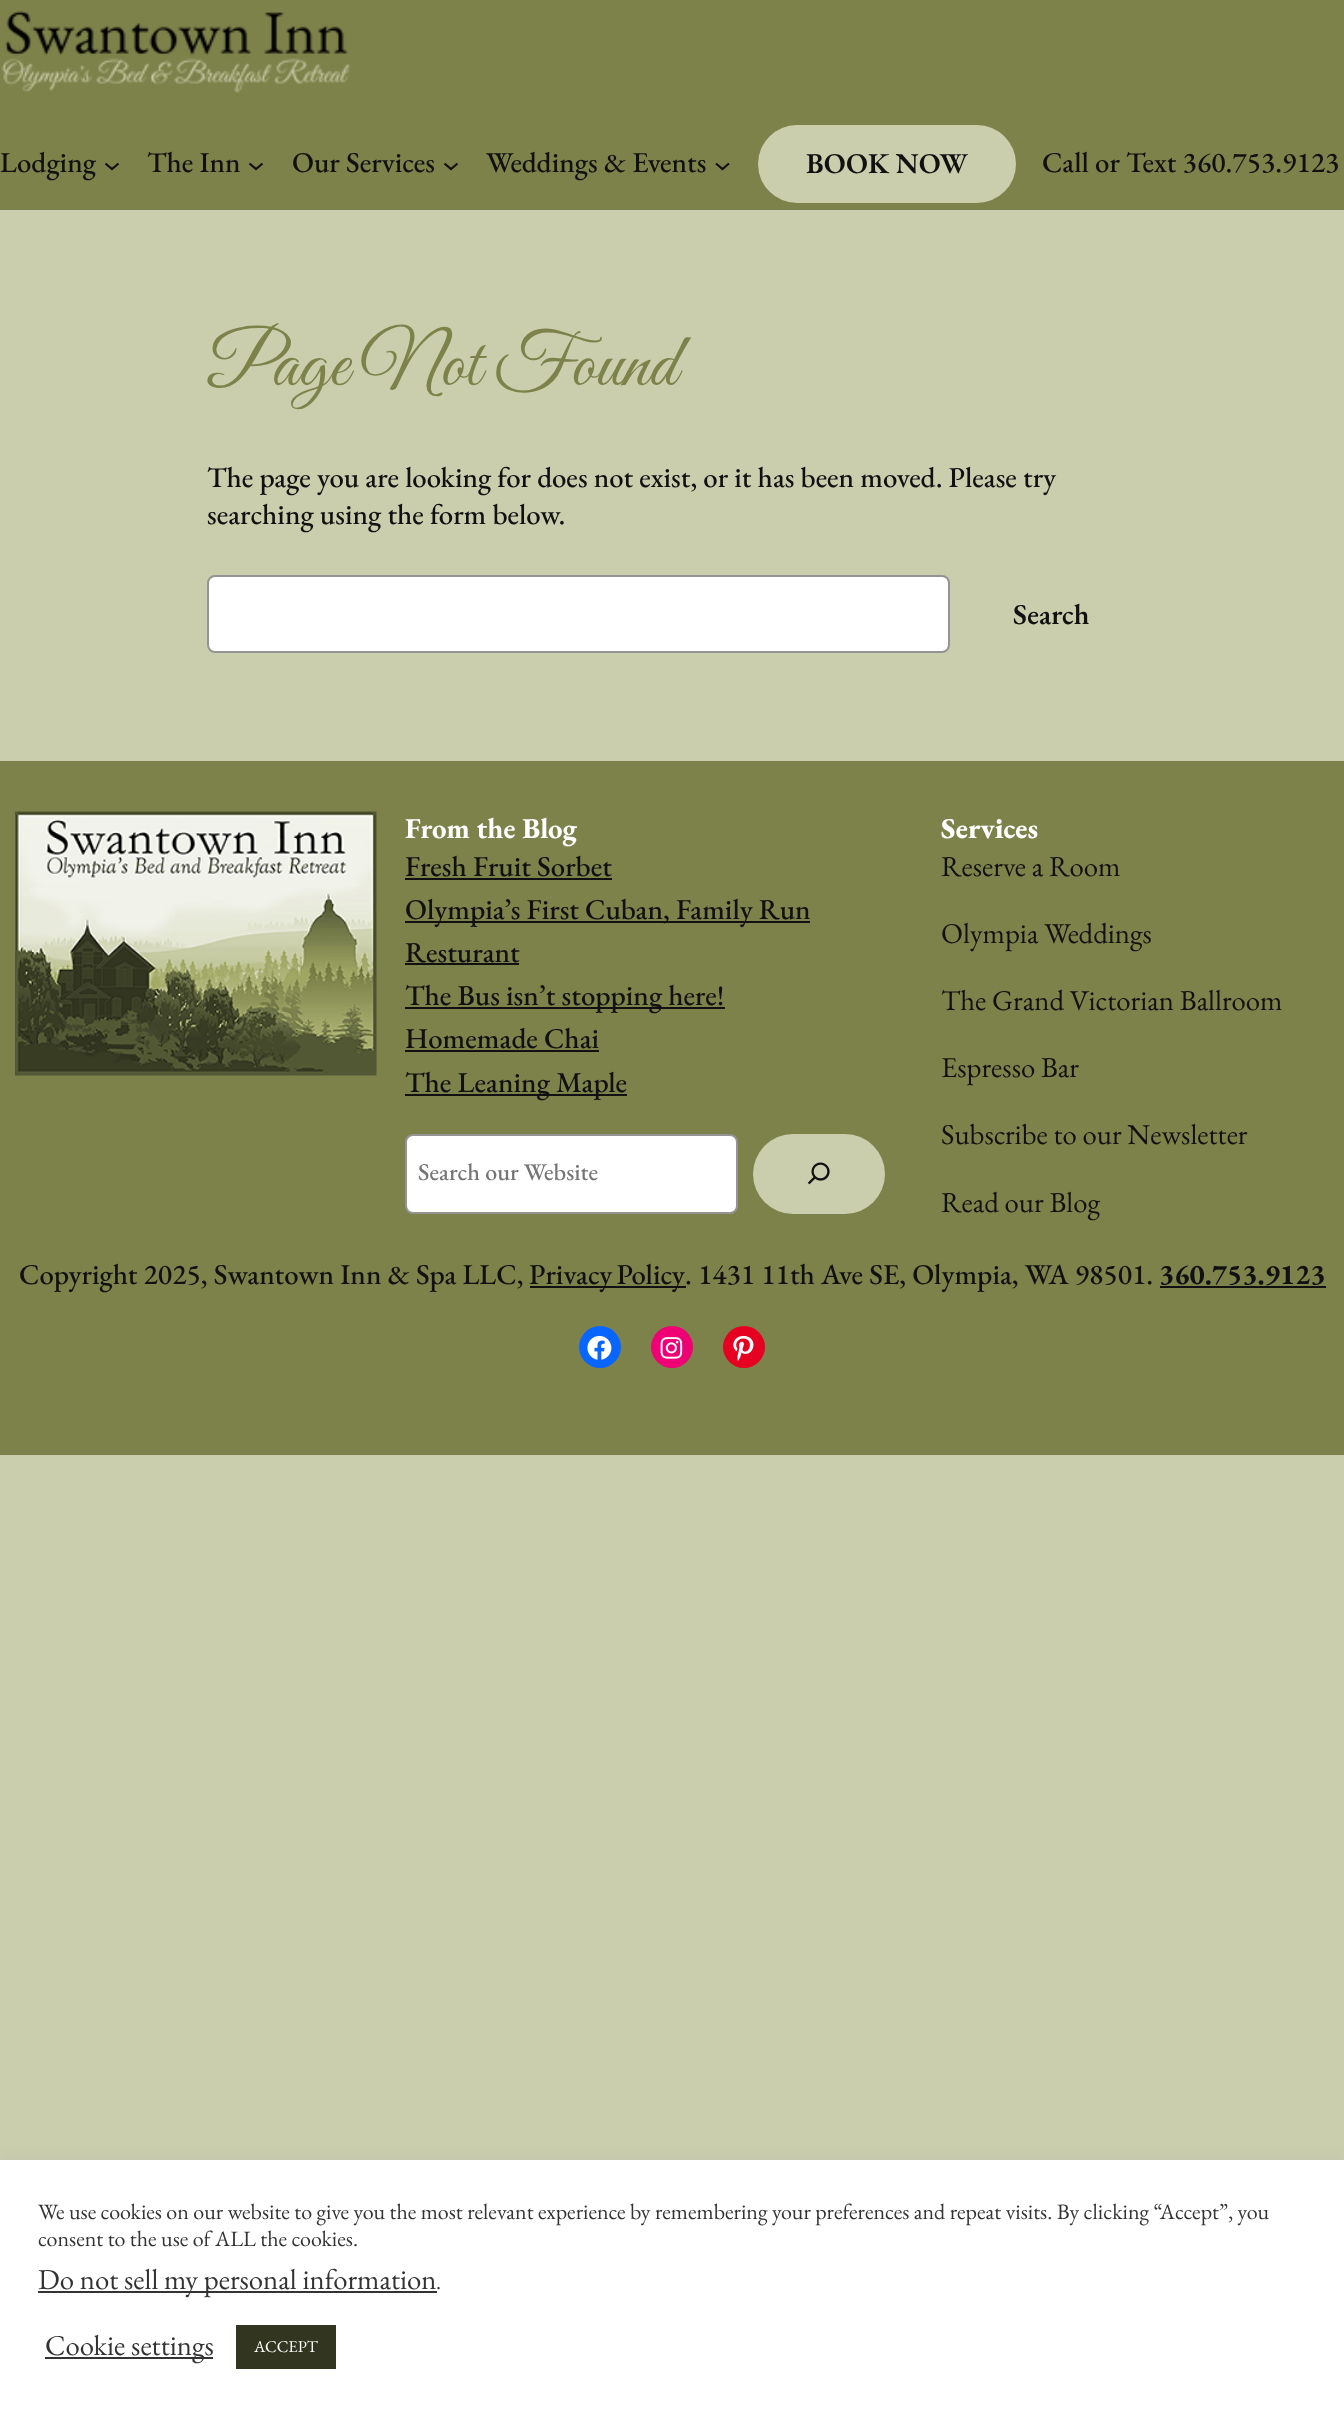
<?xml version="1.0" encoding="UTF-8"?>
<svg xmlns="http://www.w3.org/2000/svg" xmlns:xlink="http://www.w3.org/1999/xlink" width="1344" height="2413">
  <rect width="100%" height="100%" fill="#cacead" />
  <rect width="1344" height="210" fill="#7d824a" />
  <image x="1" y="10" width="350" height="83" xlink:href="image1.png" />
  <path d="M 105.5 163.5 l 6.5 5.5 l 6.5 -5.5" fill="none" stroke="#111111" stroke-width="2.2" />
  <path d="M 249.5 163.5 l 6.5 5.5 l 6.5 -5.5" fill="none" stroke="#111111" stroke-width="2.2" />
  <path d="M 444.5 163.5 l 6.5 5.5 l 6.5 -5.5" fill="none" stroke="#111111" stroke-width="2.2" />
  <path d="M 716 163.5 l 6.5 5.5 l 6.5 -5.5" fill="none" stroke="#111111" stroke-width="2.2" />
  <rect x="758" y="125" width="258" height="78" rx="39" fill="#cacead" />
  <rect x="208" y="576" width="741" height="76" rx="7" fill="#ffffff" stroke="#949494" stroke-width="2" />
  <rect y="761" width="1344" height="694" fill="#7d824a" />
  <image x="15" y="811" width="362" height="265" xlink:href="image2.png" />
  <rect x="405" y="878" width="207" height="2" fill="#111111" />
  <rect x="405" y="921" width="405" height="2" fill="#111111" />
  <rect x="405" y="963" width="114" height="2" fill="#111111" />
  <rect x="405" y="1007" width="320" height="2" fill="#111111" />
  <rect x="405" y="1050" width="194" height="2" fill="#111111" />
  <rect x="405" y="1094" width="222" height="2" fill="#111111" />
  <rect x="406" y="1135" width="331" height="78" rx="7" fill="#ffffff" stroke="#949494" stroke-width="2" />
  <rect x="753" y="1134" width="132" height="80" rx="40" fill="#cacead" />
  <image x="807" y="1162" width="23" height="23" xlink:href="image3.png" />
  <rect x="530" y="1286" width="156" height="2" fill="#111111" />
  <rect x="1160" y="1286" width="166" height="2" fill="#111111" />
  <circle cx="600" cy="1347" r="21" fill="#0866ff" />
  <image x="587" y="1335" width="25" height="25" xlink:href="image4.png" />
  <circle cx="672" cy="1347" r="21" fill="#f00075" />
  <image x="660" y="1337" width="23" height="22" xlink:href="image5.png" />
  <circle cx="744" cy="1347" r="21" fill="#e60122" />
  <image x="733" y="1335" width="21" height="26" xlink:href="image6.png" />
  <rect y="2159" width="1344" height="253" fill="#acabab" fill-opacity="0.3" filter="blur(7.5px)" />
  <rect y="2160" width="1344" height="253" fill="#ffffff" />
  <rect x="38" y="2291" width="399" height="2" fill="#333333" />
  <rect x="45" y="2357" width="168" height="2" fill="#333333" />
  <rect x="236" y="2325" width="100" height="44" fill="#323520" />
  <text x="0" y="172" style="font-family: EB Garamond; font-size: 28.8px; font-weight: 500; fill: #111111">Lodging</text>
  <text x="147" y="172" style="font-family: EB Garamond; font-size: 28.8px; font-weight: 500; fill: #111111">The Inn</text>
  <text x="292" y="172" style="font-family: EB Garamond; font-size: 28.8px; font-weight: 500; fill: #111111">Our Services</text>
  <text x="486" y="172" style="font-family: EB Garamond; font-size: 28.8px; font-weight: 500; fill: #111111">Weddings &amp; Events</text>
  <text x="806" y="173" style="font-family: EB Garamond; font-size: 28.8px; font-weight: 600; fill: #111111">BOOK NOW</text>
  <text x="1042" y="172" style="font-family: EB Garamond; font-size: 28.8px; font-weight: 500; fill: #111111">Call or Text 360.753.9123</text>
  <text x="207" y="385" style="font-family: Great Vibes; font-size: 76px; fill: #7d824a">Page Not Found</text>
  <text x="207" y="487" style="font-family: EB Garamond; font-size: 28.8px; font-weight: 500; fill: #111111">The page you are looking for does not exist, or it has been moved. Please try</text>
  <text x="207" y="524" style="font-family: EB Garamond; font-size: 28.8px; font-weight: 500; fill: #111111">searching using the form below.</text>
  <text x="1013" y="624" style="font-family: EB Garamond; font-size: 28.8px; font-weight: 600; fill: #111111">Search</text>
  <text x="405" y="838" style="font-family: EB Garamond; font-size: 28.8px; font-weight: bold; fill: #ffffff">From the Blog</text>
  <text x="405" y="876" style="font-family: EB Garamond; font-size: 28.8px; font-weight: 500; fill: #111111">Fresh Fruit Sorbet</text>
  <text x="405" y="919" style="font-family: EB Garamond; font-size: 28.8px; font-weight: 500; fill: #111111">Olympia’s First Cuban, Family Run</text>
  <text x="405" y="962" style="font-family: EB Garamond; font-size: 28.8px; font-weight: 500; fill: #111111">Resturant</text>
  <text x="405" y="1005" style="font-family: EB Garamond; font-size: 28.8px; font-weight: 500; fill: #111111">The Bus isn’t stopping here!</text>
  <text x="405" y="1048" style="font-family: EB Garamond; font-size: 28.8px; font-weight: 500; fill: #111111">Homemade Chai</text>
  <text x="405" y="1092" style="font-family: EB Garamond; font-size: 28.8px; font-weight: 500; fill: #111111">The Leaning Maple</text>
  <text x="418" y="1180" style="font-family: EB Garamond; font-size: 24px; font-weight: 500; fill: #757575">Search our Website</text>
  <text x="941" y="838" style="font-family: EB Garamond; font-size: 28.8px; font-weight: 800; fill: #ffffff">Services</text>
  <text x="941" y="876" style="font-family: EB Garamond; font-size: 28.8px; fill: #111111">Reserve a Room</text>
  <text x="941" y="943" style="font-family: EB Garamond; font-size: 28.8px; fill: #111111">Olympia Weddings</text>
  <text x="941" y="1010" style="font-family: EB Garamond; font-size: 28.8px; fill: #111111">The Grand Victorian Ballroom</text>
  <text x="941" y="1077" style="font-family: EB Garamond; font-size: 28.8px; fill: #111111">Espresso Bar</text>
  <text x="941" y="1144" style="font-family: EB Garamond; font-size: 28.8px; fill: #111111">Subscribe to our Newsletter</text>
  <text x="941" y="1212" style="font-family: EB Garamond; font-size: 28.8px; fill: #111111">Read our Blog</text>
  <text x="19" y="1284" style="font-family: EB Garamond; font-size: 28.8px; font-weight: 500; fill: #111111">Copyright 2025, Swantown Inn &amp; Spa LLC,</text>
  <text x="529" y="1284" word-spacing="-2" style="font-family: EB Garamond; font-size: 28.8px; font-weight: 500; fill: #111111">Privacy Policy</text>
  <text x="685" y="1284" style="font-family: EB Garamond; font-size: 28.8px; font-weight: 500; fill: #111111">. 1431 11th Ave SE, Olympia, WA 98501.</text>
  <text x="1159" y="1284" style="font-family: EB Garamond; font-size: 28.8px; font-weight: bold; fill: #111111">360.753.9123</text>
  <text x="38" y="2219" style="font-family: EB Garamond; font-size: 22px; fill: #333333">We use cookies on our website to give you the most relevant experience by remembering your preferences and repeat visits. By clicking “Accept”, you</text>
  <text x="38" y="2246" style="font-family: EB Garamond; font-size: 22px; fill: #333333">consent to the use of ALL the cookies.</text>
  <text x="38" y="2289" style="font-family: EB Garamond; font-size: 28.8px; fill: #333333">Do not sell my personal information</text>
  <text x="436" y="2289" style="font-family: EB Garamond; font-size: 22px; fill: #333333">.</text>
  <text x="45" y="2355" style="font-family: EB Garamond; font-size: 28.8px; fill: #333333">Cookie settings</text>
  <text x="254" y="2352" style="font-family: EB Garamond; font-size: 16.5px; fill: #ffffff">ACCEPT</text>
</svg>
